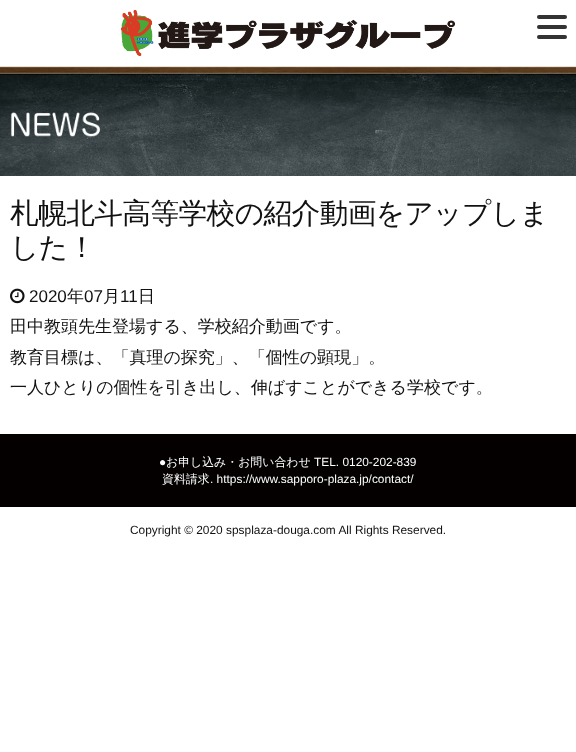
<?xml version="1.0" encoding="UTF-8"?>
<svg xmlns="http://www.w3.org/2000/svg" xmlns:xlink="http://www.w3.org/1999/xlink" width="576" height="752">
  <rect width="100%" height="100%" fill="#ffffff" />
  <rect x="537" y="15" width="30" height="4" rx="2" fill="#333333" />
  <rect x="537" y="25" width="30" height="4" rx="2" fill="#333333" />
  <rect x="537" y="35" width="30" height="4" rx="2" fill="#333333" />
  <image x="121" y="10" width="334" height="46" xlink:href="image1.png" />
  <image x="0" y="66" width="576" height="110" xlink:href="image2.png" />
  <image x="10" y="112" width="90" height="25" xlink:href="image3.png" />
  <image x="10" y="288" width="15" height="16" xlink:href="image4.png" />
  <rect y="434" width="576" height="73" fill="#040000" />
  <text x="10" y="223" style="font-family: WenQuanYi Zen Hei; font-size: 28.7px; font-weight: 500; letter-spacing: -0.6px; fill: #111111">札幌北斗高等学校の紹介動画をアップしま</text>
  <text x="10" y="257" style="font-family: WenQuanYi Zen Hei; font-size: 28.7px; font-weight: 500; letter-spacing: -0.6px; fill: #111111">した！</text>
  <text x="29" y="302" style="font-family: Liberation Sans; font-size: 17px; fill: #111111">2020</text>
  <text x="67" y="302" style="font-family: WenQuanYi Zen Hei; font-size: 17px; font-weight: 500; fill: #111111">年</text>
  <text x="84" y="302" style="font-family: Liberation Sans; font-size: 17px; fill: #111111">07</text>
  <text x="103" y="302" style="font-family: WenQuanYi Zen Hei; font-size: 17px; font-weight: 500; fill: #111111">月</text>
  <text x="120" y="302" style="font-family: Liberation Sans; font-size: 17px; fill: #111111">11</text>
  <text x="138" y="302" style="font-family: WenQuanYi Zen Hei; font-size: 17px; font-weight: 500; fill: #111111">日</text>
  <text x="10" y="332" style="font-family: WenQuanYi Zen Hei; font-size: 17px; font-weight: 500; fill: #111111">田中教頭先生登場する、学校紹介動画です。</text>
  <text x="10" y="363" style="font-family: WenQuanYi Zen Hei; font-size: 17px; font-weight: 500; fill: #111111">教育目標は、「真理の探究」、「個性の顕現」。</text>
  <text x="10" y="393" style="font-family: WenQuanYi Zen Hei; font-size: 17px; font-weight: 500; fill: #111111">一人ひとりの個性を引き出し、伸ばすことができる学校です。</text>
  <text x="159" y="466" style="font-family: Liberation Sans; font-size: 11.9px; fill: #ffffff">●</text>
  <text x="166" y="466" style="font-family: WenQuanYi Zen Hei; font-size: 11.9px; font-weight: 500; fill: #ffffff">お申し込み・お問い合わせ</text>
  <text x="314" y="466" style="font-family: Liberation Sans; font-size: 11.9px; fill: #ffffff">TEL. 0120-202-839</text>
  <text x="162" y="483" style="font-family: WenQuanYi Zen Hei; font-size: 11.9px; font-weight: 500; fill: #ffffff">資料請求</text>
  <text x="210" y="483" style="font-family: Liberation Sans; font-size: 11.9px; fill: #ffffff">. https://www.sapporo-plaza.jp/contact/</text>
  <text x="130" y="534" style="font-family: Liberation Sans; font-size: 11.9px; fill: #111111">Copyright © 2020 spsplaza-douga.com All Rights Reserved.</text>
</svg>
